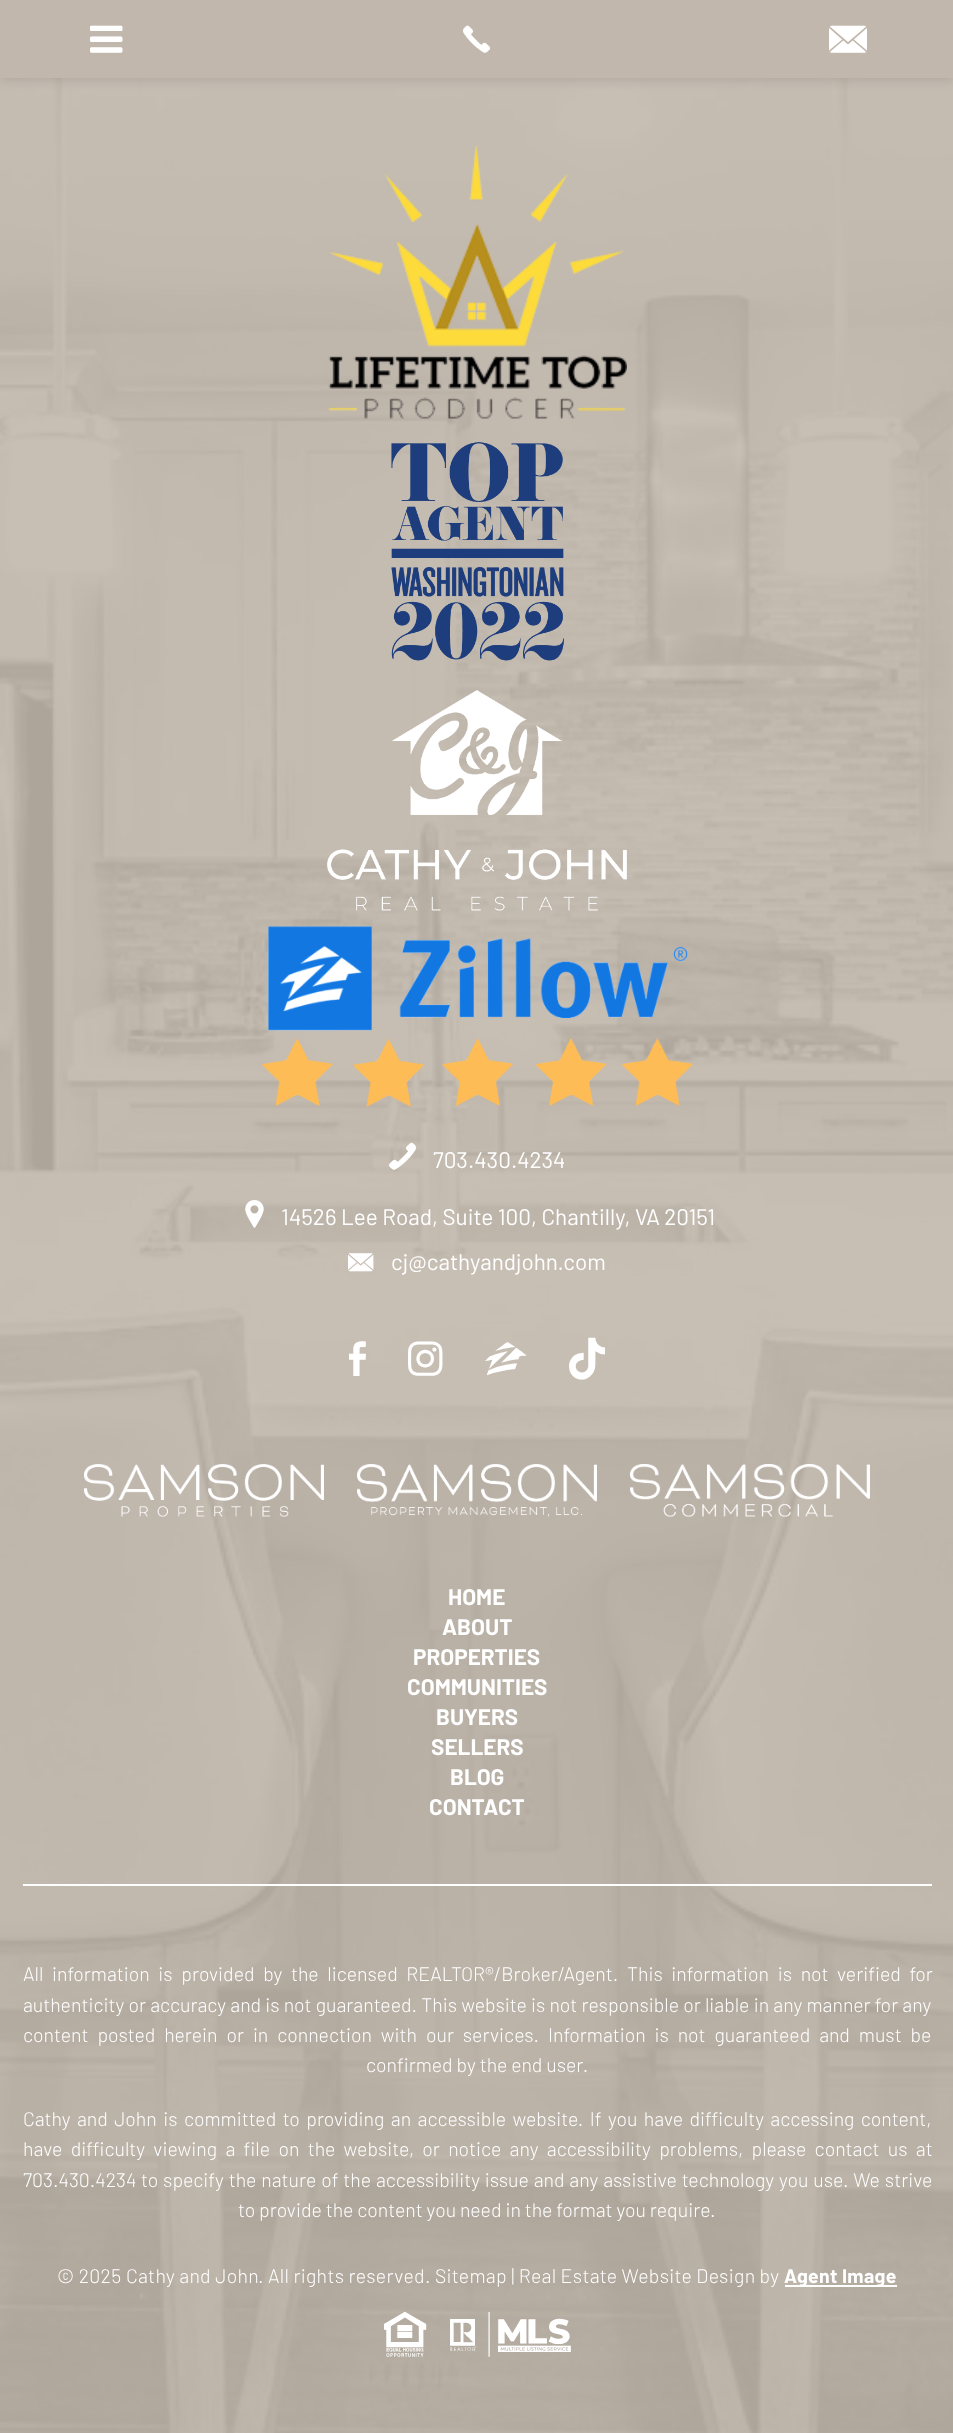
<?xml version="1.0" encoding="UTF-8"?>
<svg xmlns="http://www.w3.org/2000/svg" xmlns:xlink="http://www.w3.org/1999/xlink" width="953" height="2433">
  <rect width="100%" height="100%" fill="#c1b7ac" />
  <image x="0" y="78" width="953" height="2355" xlink:href="image1.png" />
  <rect y="3" width="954" height="78" fill="#000101" fill-opacity="0.09" filter="blur(5px)" />
  <rect width="953" height="78" fill="#c1b7ac" />
  <image x="328" y="144" width="299" height="275" xlink:href="image2.png" />
  <image x="391" y="442" width="173" height="219" xlink:href="image3.png" />
  <image x="327" y="690" width="300" height="221" xlink:href="image4.png" />
  <image x="261" y="926" width="432" height="181" xlink:href="image5.png" />
  <image x="84" y="1464" width="240" height="53" xlink:href="image6.png" />
  <image x="357" y="1464" width="240" height="53" xlink:href="image7.png" />
  <image x="630" y="1464" width="240" height="53" xlink:href="image8.png" />
  <rect x="23" y="1884" width="909" height="2" fill="#ffffff" />
  <rect x="785" y="2285" width="112" height="2" fill="#ffffff" />
  <text x="90" y="51" style="font-family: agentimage; font-size: 27px; fill: #ffffff">򰁰</text>
  <text x="463" y="51" style="font-family: agentimage; font-size: 27px; fill: #ffffff">򰁩</text>
  <text x="829" y="51" style="font-family: agentimage; font-size: 27px; fill: #ffffff">򰄢</text>
  <text x="389" y="1168" style="font-family: agentimage; font-size: 27px; fill: #ffffff">򰈄</text>
  <text x="433" y="1168" style="font-family: Barlow; font-size: 22.5px; fill: #ffffff">703.430.4234</text>
  <text x="239" y="1231" style="font-family: agentimage; font-size: 33px; fill: #ffffff">򰁘</text>
  <text x="281" y="1225" style="font-family: Barlow; font-size: 22.5px; fill: #ffffff">14526 Lee Road, Suite 100, Chantilly, VA 20151</text>
  <text x="348" y="1270" style="font-family: agentimage; font-size: 18px; fill: #ffffff">򰄢</text>
  <text x="391" y="1270" style="font-family: Barlow; font-size: 22.5px; fill: #ffffff">cj@cathyandjohn.com</text>
  <text x="349" y="1377" style="font-family: agentimage; font-size: 42px; fill: #ffffff">򰄔</text>
  <text x="408" y="1377" style="font-family: agentimage; font-size: 42px; fill: #ffffff">򰄆</text>
  <text x="485" y="1377" style="font-family: agentimage; font-size: 42px; fill: #ffffff">򰂕</text>
  <text x="569" y="1377" style="font-family: agentimage; font-size: 42px; fill: #ffffff">򰉢</text>
  <text x="448" y="1605" style="font-family: Barlow; font-size: 22.5px; font-weight: bold; fill: #ffffff">HOME</text>
  <text x="442" y="1635" style="font-family: Barlow; font-size: 22.5px; font-weight: bold; fill: #ffffff">ABOUT</text>
  <text x="413" y="1665" style="font-family: Barlow; font-size: 22.5px; font-weight: bold; fill: #ffffff">PROPERTIES</text>
  <text x="407" y="1695" style="font-family: Barlow; font-size: 22.5px; font-weight: bold; fill: #ffffff">COMMUNITIES</text>
  <text x="436" y="1725" style="font-family: Barlow; font-size: 22.5px; font-weight: bold; fill: #ffffff">BUYERS</text>
  <text x="431" y="1755" style="font-family: Barlow; font-size: 22.5px; font-weight: bold; fill: #ffffff">SELLERS</text>
  <text x="450" y="1785" style="font-family: Barlow; font-size: 22.5px; font-weight: bold; fill: #ffffff">BLOG</text>
  <text x="429" y="1815" style="font-family: Barlow; font-size: 22.5px; font-weight: bold; fill: #ffffff">CONTACT</text>
  <text x="23" y="1981" word-spacing="4.75" style="font-family: Barlow; font-size: 19.5px; font-weight: 300; fill: #ffffff">All information is provided by the licensed REALTOR®/Broker/Agent. This information is not verified for</text>
  <text x="23" y="2012" word-spacing="0.3" style="font-family: Barlow; font-size: 19.5px; font-weight: 300; fill: #ffffff">authenticity or accuracy and is not guaranteed. This website is not responsible or liable in any manner for any</text>
  <text x="23" y="2042" word-spacing="5" style="font-family: Barlow; font-size: 19.5px; font-weight: 300; fill: #ffffff">content posted herein or in connection with our services. Information is not guaranteed and must be</text>
  <text x="366" y="2072" style="font-family: Barlow; font-size: 19.5px; font-weight: 300; fill: #ffffff">confirmed by the end user.</text>
  <text x="23" y="2126" word-spacing="2.5" style="font-family: Barlow; font-size: 19.5px; font-weight: 300; fill: #ffffff">Cathy and John is committed to providing an accessible website. If you have difficulty accessing content,</text>
  <text x="23" y="2156" word-spacing="4.4" style="font-family: Barlow; font-size: 19.5px; font-weight: 300; fill: #ffffff">have difficulty viewing a file on the website, or notice any accessibility problems, please contact us at</text>
  <text x="23" y="2187" style="font-family: Barlow; font-size: 19.5px; font-weight: 300; fill: #ffffff">703.430.4234</text>
  <text x="141" y="2187" word-spacing="1" style="font-family: Barlow; font-size: 19.5px; font-weight: 300; fill: #ffffff">to specify the nature of the accessibility issue and any assistive technology you use. We strive</text>
  <text x="238" y="2217" style="font-family: Barlow; font-size: 19.5px; font-weight: 300; fill: #ffffff">to provide the content you need in the format you require.</text>
  <text x="57" y="2283" style="font-family: Barlow; font-size: 19.5px; font-weight: 300; letter-spacing: 0.3px; fill: #ffffff">© 2025</text>
  <text x="126" y="2283" style="font-family: Barlow; font-size: 19.5px; font-weight: 300; letter-spacing: 0.3px; fill: #ffffff">Cathy and John</text>
  <text x="258" y="2283" style="font-family: Barlow; font-size: 19.5px; font-weight: 300; letter-spacing: 0.3px; fill: #ffffff">. All rights reserved. Sitemap | Real Estate Website Design by</text>
  <text x="784" y="2283" style="font-family: Barlow; font-size: 19.5px; font-weight: bold; letter-spacing: 0.3px; fill: #ffffff">Agent Image</text>
  <text x="384" y="2354" style="font-family: agentimage; font-size: 45px; fill: #ffffff">򰂐</text>
  <text x="450" y="2354" style="font-family: agentimage; font-size: 45px; fill: #ffffff">򰌇</text>
</svg>
